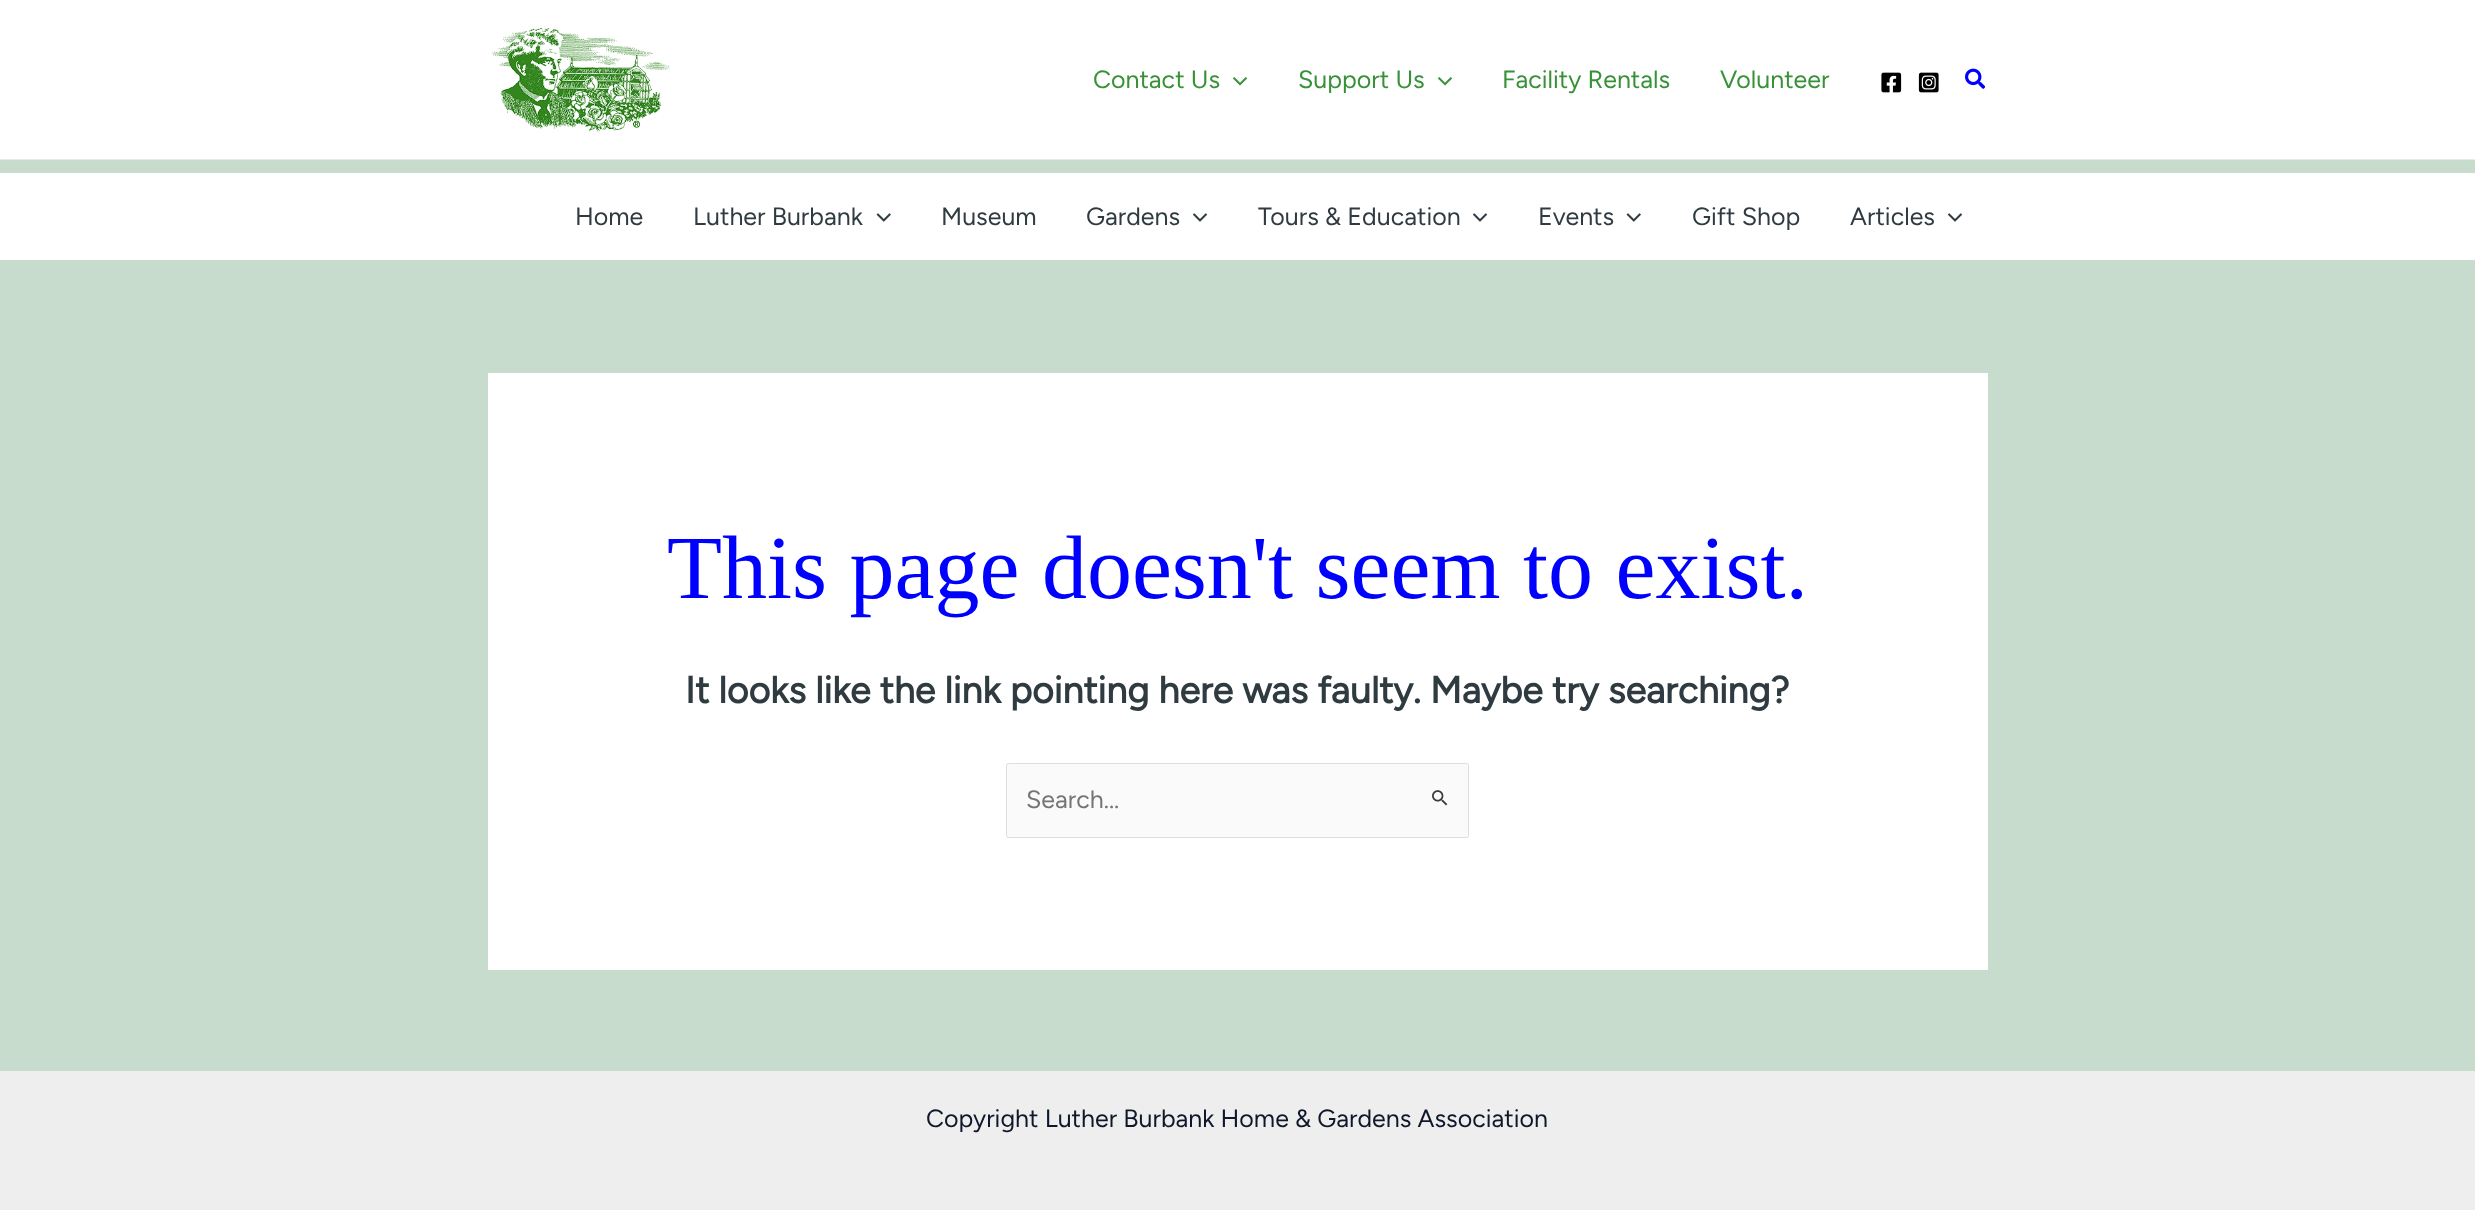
<?xml version="1.0" encoding="UTF-8"?>
<svg xmlns="http://www.w3.org/2000/svg" xmlns:xlink="http://www.w3.org/1999/xlink" width="2475" height="1210">
  <rect width="100%" height="100%" fill="#c7dccd" />
  <rect width="2475" height="159" fill="#ffffff" />
  <rect y="159" width="2475" height="1" fill="#eaeaea" />
  <image x="491" y="28" width="179" height="104" xlink:href="image1.png" />
  <image x="1233" y="77" width="15" height="9" xlink:href="image2.png" />
  <image x="1438" y="77" width="15" height="9" xlink:href="image2.png" />
  <image x="1881" y="72" width="21" height="21" xlink:href="image3.png" />
  <image x="1918" y="72" width="21" height="21" xlink:href="image4.png" />
  <image x="1965" y="68" width="20" height="21" xlink:href="image5.png" />
  <rect y="173" width="2475" height="87" fill="#ffffff" />
  <image x="876" y="213" width="15" height="9" xlink:href="image6.png" />
  <image x="1193" y="213" width="15" height="9" xlink:href="image7.png" />
  <image x="1473" y="213" width="15" height="9" xlink:href="image7.png" />
  <image x="1626" y="213" width="15" height="9" xlink:href="image6.png" />
  <image x="1948" y="213" width="15" height="9" xlink:href="image7.png" />
  <rect x="488" y="373" width="1500" height="597" fill="#ffffff" />
  <rect x="1006.5" y="763.5" width="462" height="74" rx="2" fill="#fafafa" stroke="#dddddd" />
  <image x="1432" y="790" width="16" height="16" xlink:href="image8.png" />
  <rect y="1071" width="2475" height="139" fill="#eeeeee" />
  <text x="1093" y="88" style="font-family: Figtree; font-size: 25px; font-weight: 300; fill: #379237">Contact Us</text>
  <text x="1298" y="88" style="font-family: Figtree; font-size: 25px; font-weight: 300; fill: #379237">Support Us</text>
  <text x="1502" y="88" style="font-family: Figtree; font-size: 25px; font-weight: 300; fill: #379237">Facility Rentals</text>
  <text x="1720" y="88" style="font-family: Figtree; font-size: 25px; font-weight: 300; fill: #379237">Volunteer</text>
  <text x="575" y="225" style="font-family: Figtree; font-size: 25px; font-weight: 300; fill: #2f3b40">Home</text>
  <text x="693" y="225" style="font-family: Figtree; font-size: 25px; font-weight: 300; fill: #2f3b40">Luther Burbank</text>
  <text x="941" y="225" style="font-family: Figtree; font-size: 25px; font-weight: 300; fill: #2f3b40">Museum</text>
  <text x="1086" y="225" style="font-family: Figtree; font-size: 25px; font-weight: 300; fill: #2f3b40">Gardens</text>
  <text x="1258" y="225" style="font-family: Figtree; font-size: 25px; font-weight: 300; fill: #2f3b40">Tours &amp; Education</text>
  <text x="1538" y="225" style="font-family: Figtree; font-size: 25px; font-weight: 300; fill: #2f3b40">Events</text>
  <text x="1692" y="225" style="font-family: Figtree; font-size: 25px; font-weight: 300; fill: #2f3b40">Gift Shop</text>
  <text x="1850" y="225" style="font-family: Figtree; font-size: 25px; font-weight: 300; fill: #2f3b40">Articles</text>
  <text x="667" y="598" style="font-family: Liberation Serif; font-size: 90px; fill: #0000ff">This page doesn't seem to exist.</text>
  <text x="685" y="703" style="font-family: Figtree; font-size: 37.5px; font-weight: bold; fill: #2f3b40">It looks like the link pointing here was faulty. Maybe try searching?</text>
  <text x="1026" y="808" style="font-family: Figtree; font-size: 25px; font-weight: 300; fill: #757575">Search...</text>
  <text x="926" y="1127" style="font-family: Figtree; font-size: 25px; font-weight: 300; fill: #0f172a">Copyright Luther Burbank Home &amp; Gardens Association</text>
</svg>
